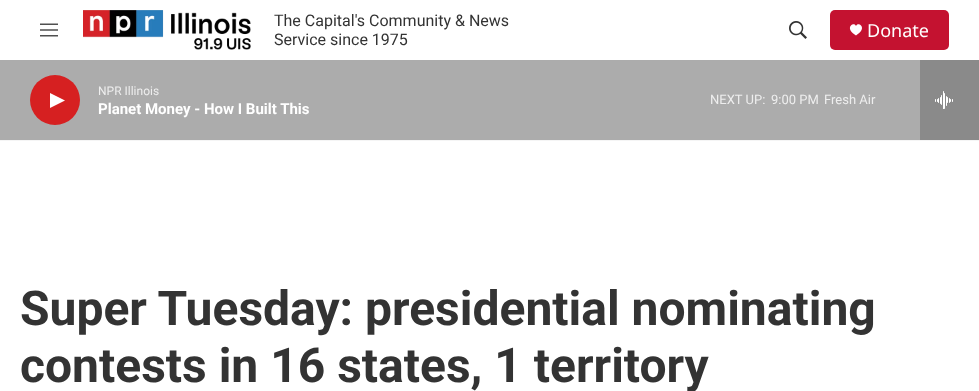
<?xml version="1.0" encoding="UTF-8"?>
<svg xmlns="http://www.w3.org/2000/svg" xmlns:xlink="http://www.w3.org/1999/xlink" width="979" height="391">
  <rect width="100%" height="100%" fill="#ffffff" />
  <rect y="140" width="979" height="1" fill="#f5f5f5" />
  <image x="40" y="23" width="18" height="14" xlink:href="image1.png" />
  <image x="83" y="10" width="168" height="40" xlink:href="image2.png" />
  <image x="789" y="21" width="18" height="18" xlink:href="image3.png" />
  <rect x="830" y="10" width="119" height="40" rx="5" fill="#c41230" />
  <path d="M 856 26 c -2 -5 -12.5 2 0 9.5 c 12.5 -7.5 2 -14.5 0 -9.5 z" fill="#ffffff" />
  <rect y="60" width="920" height="80" fill="#acacac" />
  <circle cx="55" cy="100" r="25" fill="#d62021" />
  <path d="M 50 93 l 15 7.5 l -15 7.5 z" fill="#ffffff" />
  <rect x="920" y="60" width="59" height="80" fill="#8a8a8a" />
  <image x="935" y="91" width="18" height="18" xlink:href="image4.png" />
  <text x="274" y="26" style="font-family: Roboto; font-size: 16px; fill: #333333">The Capital's Community &amp; News</text>
  <text x="274" y="45" style="font-family: Roboto; font-size: 16px; fill: #333333">Service since 1975</text>
  <text x="867" y="37" style="font-family: Noto Sans; font-size: 18px; fill: #ffffff">Donate</text>
  <text x="98" y="95" style="font-family: Roboto; font-size: 12px; fill: #eeeeee">NPR Illinois</text>
  <text x="98" y="114" style="font-family: 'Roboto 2'; font-size: 15px; font-weight: bold; fill: #ffffff">Planet Money - How I Built This</text>
  <text x="710" y="104" style="font-family: Roboto; font-size: 13px; fill: #eeeeee">NEXT UP:</text>
  <text x="771" y="104" style="font-family: Roboto; font-size: 13px; fill: #eeeeee">9:00 PM</text>
  <text x="824" y="104" style="font-family: Roboto; font-size: 13px; fill: #eeeeee">Fresh Air</text>
  <text x="20" y="325" style="font-family: Roboto; font-size: 48px; font-weight: bold; fill: #333333">Super Tuesday: presidential nominating</text>
  <text x="20" y="382" style="font-family: Roboto; font-size: 48px; font-weight: bold; fill: #333333">contests in 16 states, 1 territory</text>
</svg>
